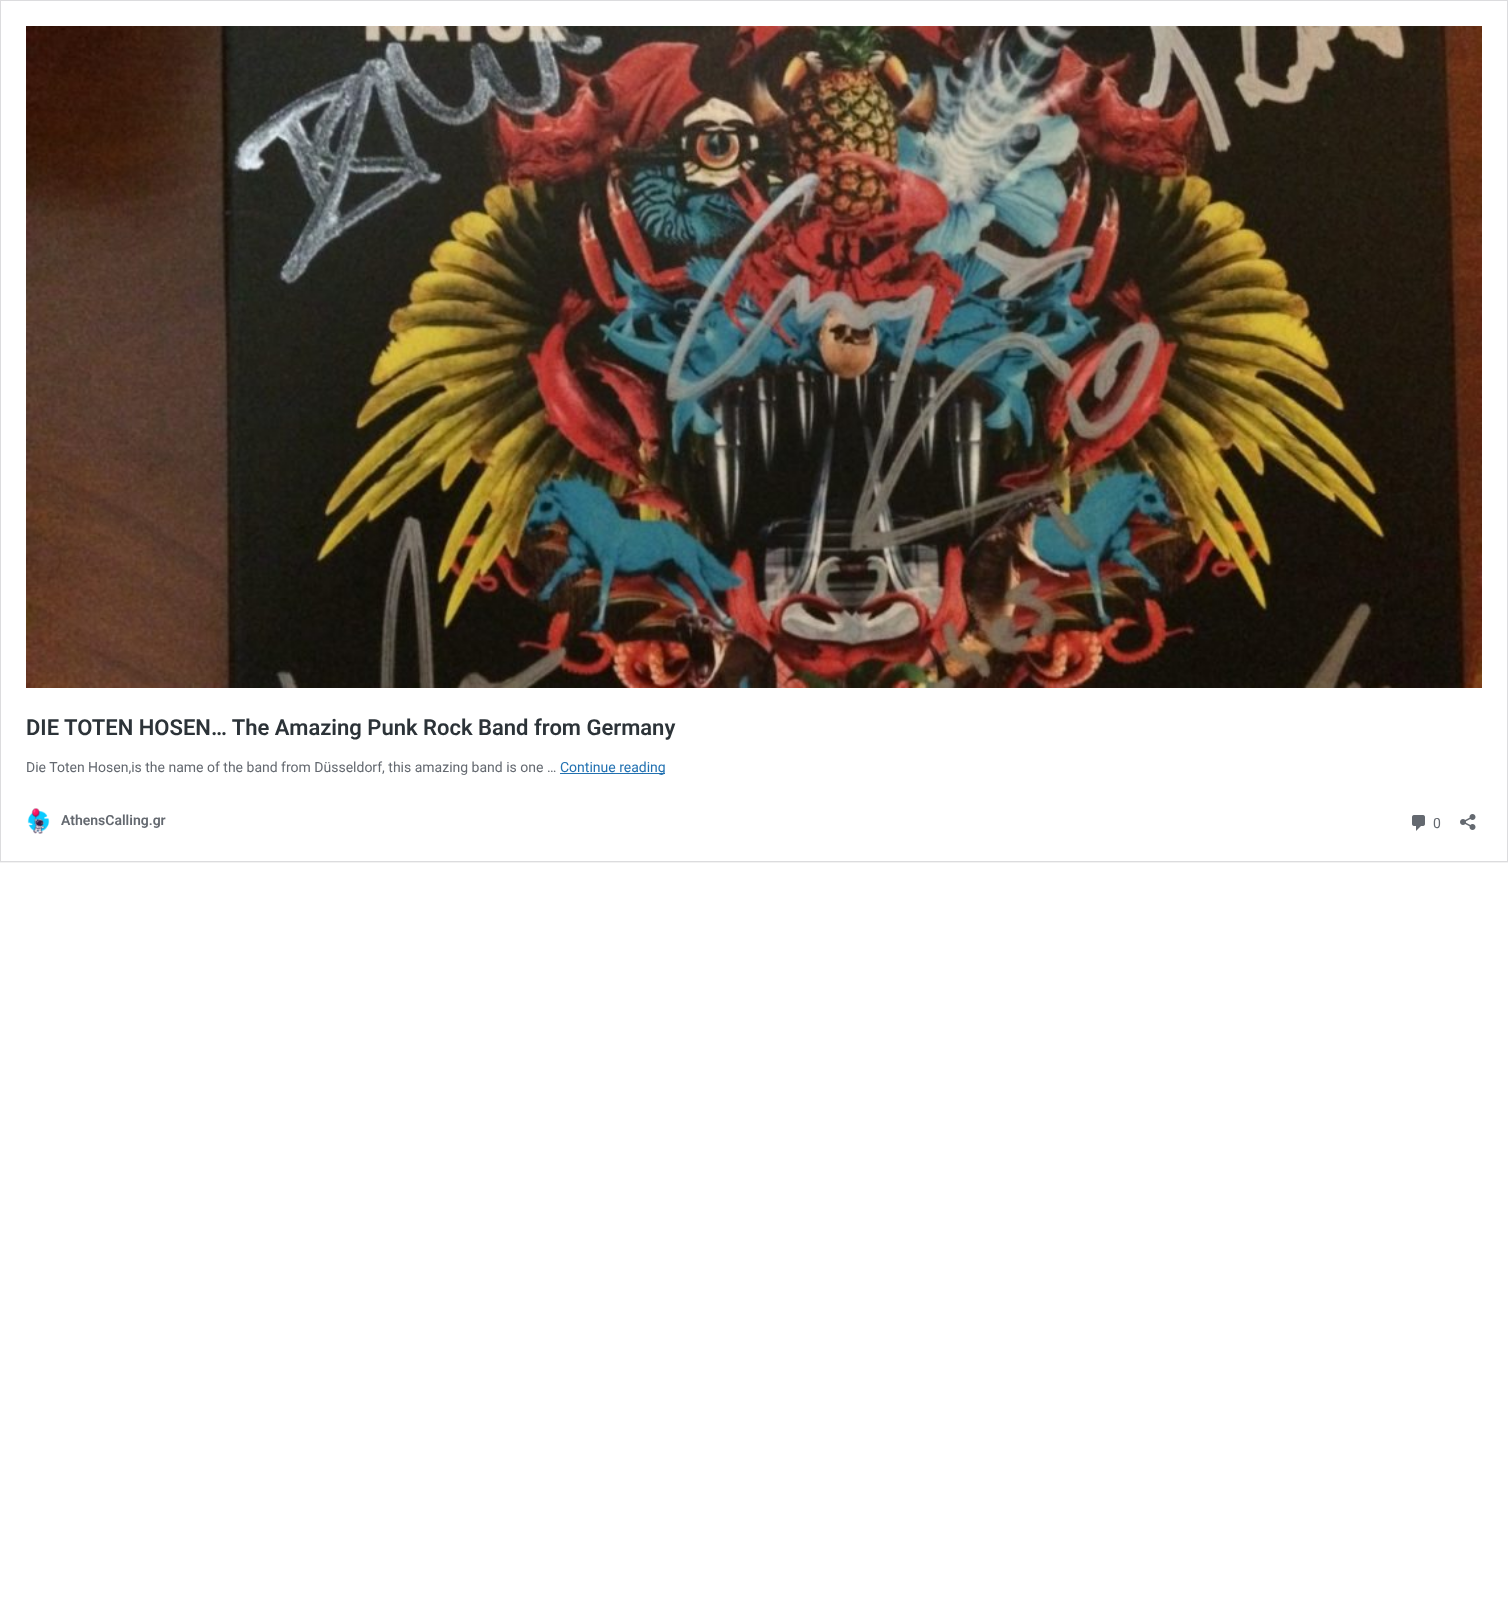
<?xml version="1.0" encoding="UTF-8"?>
<svg xmlns="http://www.w3.org/2000/svg" xmlns:xlink="http://www.w3.org/1999/xlink" width="1508" height="1600">
  <defs>
    <clipPath id="clip1"><rect x="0" y="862" width="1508" height="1" /></clipPath>
  </defs>
  <rect width="100%" height="100%" fill="#ffffff" />
  <g clip-path="url(#clip1)">
    <rect y="1" width="1508" height="862" fill="#000000" fill-opacity="0.05" filter="blur(0.5px)" />
  </g>
  <rect x="0.5" y="0.5" width="1507" height="861" fill="none" stroke="#dcdcde" />
  <image x="26" y="26" width="1456" height="662" xlink:href="image1.png" />
  <rect x="560" y="773" width="105" height="1" fill="#2271b1" />
  <image x="27" y="808" width="23" height="26" xlink:href="image2.png" />
  <image x="1412" y="815" width="13" height="16" xlink:href="image3.png" />
  <image x="1460" y="814" width="16" height="16" xlink:href="image4.png" />
  <text x="26" y="735" style="font-family: Roboto; font-size: 22px; font-weight: 600; fill: #2c3338">DIE TOTEN HOSEN… The Amazing Punk Rock Band from Germany</text>
  <text x="26" y="772" style="font-family: Roboto; font-size: 14px; fill: #646970">Die Toten Hosen,is the name of the band from Düsseldorf, this amazing band is one …</text>
  <text x="560" y="772" style="font-family: Roboto; font-size: 14px; fill: #2271b1">Continue reading</text>
  <text x="61" y="825" style="font-family: Roboto; font-size: 14px; font-weight: 600; fill: #646970">AthensCalling.gr</text>
  <text x="1433" y="828" style="font-family: Roboto; font-size: 14px; fill: #646970">0</text>
</svg>
